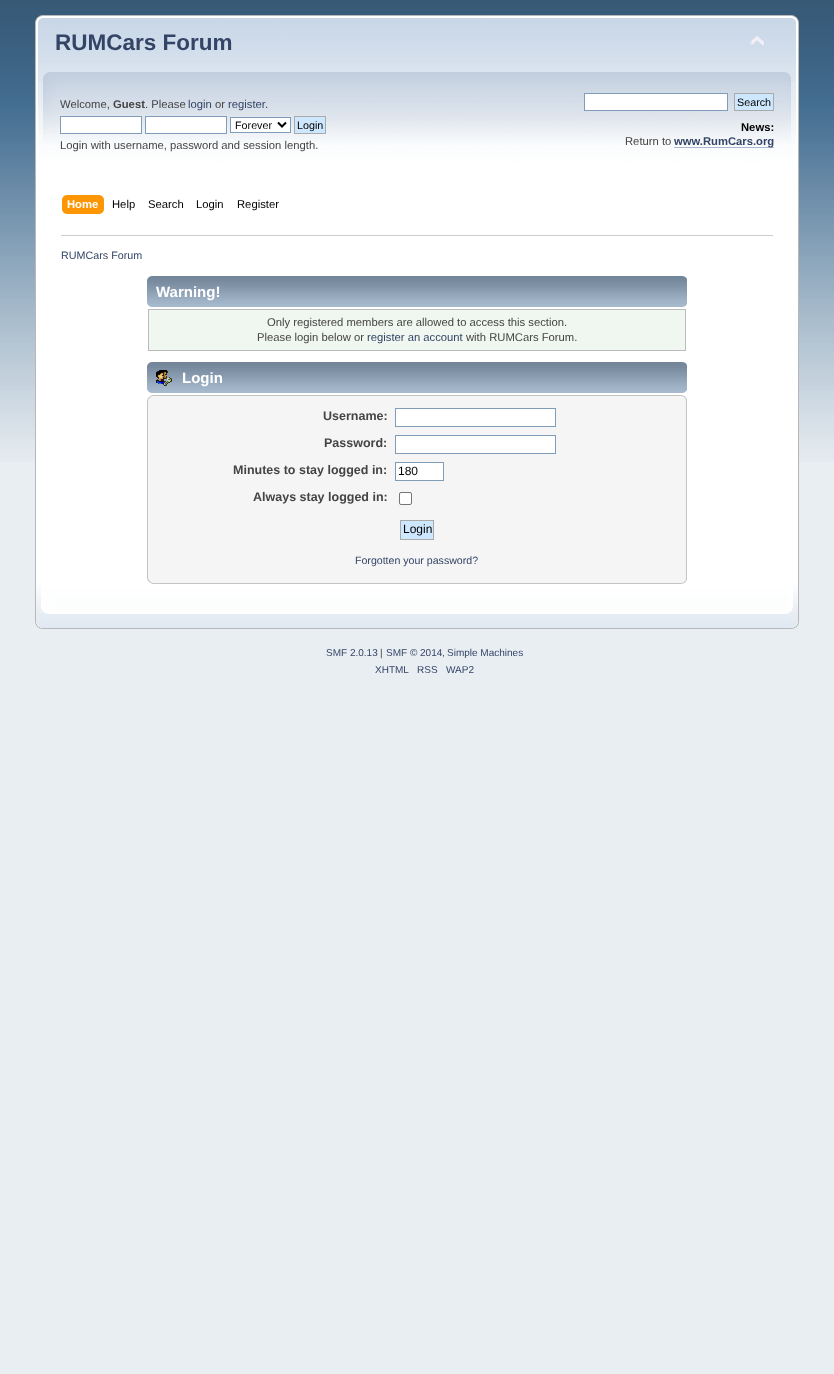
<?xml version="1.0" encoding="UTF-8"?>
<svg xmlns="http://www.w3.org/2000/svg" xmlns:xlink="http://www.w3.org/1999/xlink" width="834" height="1374">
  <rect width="100%" height="100%" fill="#e9eef2" />
  <image x="0" y="0" width="834" height="462" xlink:href="image1.png" />
  <image x="35" y="15" width="750" height="214" xlink:href="image2.png" />
  <image x="785" y="15" width="14" height="214" xlink:href="image3.png" />
  <image x="750" y="35" width="15" height="12" xlink:href="image4.png" />
  <rect x="60.5" y="116.5" width="81" height="17" fill="#ffffff" stroke="#7f9db9" />
  <rect x="145.5" y="116.5" width="81" height="17" fill="#ffffff" stroke="#7f9db9" />
  <rect x="230.5" y="117.5" width="60" height="15" fill="#ffffff" stroke="#7f9db9" />
  <path d="M 278 122.5 l 4 4 l 4 -4" fill="none" stroke="#000000" stroke-width="2" />
  <rect x="294.5" y="116.5" width="31" height="17" fill="#cde7ff" stroke="#aaaaaa" />
  <rect x="584.5" y="93.5" width="143" height="17" fill="#ffffff" stroke="#7f9db9" />
  <rect x="734.5" y="93.5" width="39" height="17" fill="#cde7ff" stroke="#aaaaaa" />
  <rect x="674" y="147" width="100" height="1" fill="#a8b6cf" />
  <image x="67" y="195" width="37" height="19" xlink:href="image5.png" />
  <image x="62" y="195" width="5" height="19" xlink:href="image6.png" />
  <rect x="36" y="229" width="762" height="356" fill="#ffffff" />
  <rect x="35" y="229" width="1" height="356" fill="#b7b7b7" />
  <rect x="798" y="229" width="1" height="356" fill="#b7b7b7" />
  <rect x="61" y="235" width="712" height="1" fill="#cccccc" />
  <image x="147" y="276" width="535" height="31" xlink:href="image7.png" />
  <image x="682" y="276" width="5" height="31" xlink:href="image8.png" />
  <rect x="148.5" y="309.5" width="537" height="41" fill="#f0f6f0" stroke="#bbbbbb" />
  <image x="147" y="362" width="535" height="31" xlink:href="image7.png" />
  <image x="682" y="362" width="5" height="31" xlink:href="image8.png" />
  <image x="156" y="370" width="16" height="16" xlink:href="image9.png" />
  <image x="147" y="395" width="534" height="11" xlink:href="image10.png" />
  <image x="681" y="395" width="6" height="11" xlink:href="image11.png" />
  <rect x="148" y="406" width="538" height="167" fill="#f5f5f5" />
  <rect x="686" y="406" width="1" height="167" fill="#c5c5c5" />
  <rect x="147" y="406" width="1" height="167" fill="#c5c5c5" />
  <rect x="395.5" y="408.5" width="160" height="18" fill="#ffffff" stroke="#7f9db9" />
  <rect x="395.5" y="435.5" width="160" height="18" fill="#ffffff" stroke="#7f9db9" />
  <rect x="395.5" y="462.5" width="48" height="18" fill="#ffffff" stroke="#7f9db9" />
  <rect x="399.5" y="492.5" width="12" height="12" rx="1.5" fill="#ffffff" stroke="#767676" />
  <rect x="400.5" y="520.5" width="33" height="19" fill="#cde7ff" stroke="#aaaaaa" />
  <image x="147" y="573" width="534" height="11" xlink:href="image12.png" />
  <image x="681" y="573" width="6" height="11" xlink:href="image13.png" />
  <image x="35" y="585" width="752" height="44" xlink:href="image14.png" />
  <image x="787" y="585" width="12" height="44" xlink:href="image15.png" />
  <text x="55" y="50" style="font-family: Liberation Sans; font-size: 22.5px; font-weight: bold; fill: #334466">RUMCars Forum</text>
  <text x="60" y="108" style="font-family: Liberation Sans; font-size: 11.25px; fill: #444444">Welcome,</text>
  <text x="113" y="108" style="font-family: Liberation Sans; font-size: 11.25px; font-weight: bold; fill: #444444">Guest</text>
  <text x="145" y="108" style="font-family: Liberation Sans; font-size: 11.25px; fill: #444444">. Please</text>
  <text x="188" y="108" style="font-family: Liberation Sans; font-size: 11.25px; fill: #334466">login</text>
  <text x="215" y="108" style="font-family: Liberation Sans; font-size: 11.25px; fill: #444444">or</text>
  <text x="228" y="108" style="font-family: Liberation Sans; font-size: 11.25px; fill: #334466">register</text>
  <text x="265" y="108" style="font-family: Liberation Sans; font-size: 11.25px; fill: #444444">.</text>
  <text x="235" y="129" style="font-family: Liberation Sans; font-size: 10.75px; fill: #000000">Forever</text>
  <text x="297" y="129" style="font-family: Liberation Sans; font-size: 10.75px; fill: #000000">Login</text>
  <text x="60" y="149" style="font-family: Liberation Sans; font-size: 11.25px; fill: #444444">Login with username, password and session length.</text>
  <text x="737" y="106" style="font-family: Liberation Sans; font-size: 10.75px; fill: #000000">Search</text>
  <text x="741" y="131" style="font-family: Liberation Sans; font-size: 11.25px; font-weight: bold; fill: #000000">News:</text>
  <text x="625" y="145" style="font-family: Liberation Sans; font-size: 11.25px; fill: #444444">Return to</text>
  <text x="674" y="145" style="font-family: Liberation Sans; font-size: 11.25px; font-weight: bold; fill: #334466">www.RumCars.org</text>
  <text x="67" y="208" style="font-family: Liberation Sans; font-size: 11.25px; font-weight: bold; fill: #ffffff">Home</text>
  <text x="112" y="208" style="font-family: Liberation Sans; font-size: 11.25px; fill: #000000">Help</text>
  <text x="148" y="208" style="font-family: Liberation Sans; font-size: 11.25px; fill: #000000">Search</text>
  <text x="196" y="208" style="font-family: Liberation Sans; font-size: 11.25px; fill: #000000">Login</text>
  <text x="237" y="208" style="font-family: Liberation Sans; font-size: 11.25px; fill: #000000">Register</text>
  <text x="61" y="259" style="font-family: Liberation Sans; font-size: 10.75px; fill: #334466">RUMCars Forum</text>
  <text x="156" y="297" style="font-family: Liberation Sans; font-size: 15px; font-weight: bold; fill: #ffffff">Warning!</text>
  <text x="267" y="326" style="font-family: Liberation Sans; font-size: 11.25px; fill: #444444">Only registered members are allowed to access this section.</text>
  <text x="257" y="341" style="font-family: Liberation Sans; font-size: 11.25px; fill: #444444">Please login below or</text>
  <text x="367" y="341" style="font-family: Liberation Sans; font-size: 11.25px; fill: #334466">register an account</text>
  <text x="466" y="341" style="font-family: Liberation Sans; font-size: 11.25px; fill: #444444">with RUMCars Forum.</text>
  <text x="182" y="383" style="font-family: Liberation Sans; font-size: 15px; font-weight: bold; fill: #ffffff">Login</text>
  <text x="323" y="420" style="font-family: Liberation Sans; font-size: 12.5px; font-weight: bold; fill: #444444">Username:</text>
  <text x="324" y="447" style="font-family: Liberation Sans; font-size: 12.5px; font-weight: bold; fill: #444444">Password:</text>
  <text x="233" y="474" style="font-family: Liberation Sans; font-size: 12.5px; font-weight: bold; fill: #444444">Minutes to stay logged in:</text>
  <text x="398" y="475" style="font-family: Liberation Sans; font-size: 12px; fill: #000000">180</text>
  <text x="253" y="501" style="font-family: Liberation Sans; font-size: 12.5px; font-weight: bold; fill: #444444">Always stay logged in:</text>
  <text x="403" y="533" style="font-family: Liberation Sans; font-size: 12px; fill: #000000">Login</text>
  <text x="355" y="564" style="font-family: Liberation Sans; font-size: 10.6px; fill: #334466">Forgotten your password?</text>
  <text x="326" y="656" style="font-family: Liberation Sans; font-size: 10px; fill: #334466">SMF 2.0.13</text>
  <text x="380" y="656" style="font-family: Liberation Sans; font-size: 10px; fill: #444444">|</text>
  <text x="386" y="656" style="font-family: Liberation Sans; font-size: 10px; fill: #334466">SMF © 2014</text>
  <text x="442" y="656" style="font-family: Liberation Sans; font-size: 10px; fill: #444444">,</text>
  <text x="447" y="656" style="font-family: Liberation Sans; font-size: 10px; fill: #334466">Simple Machines</text>
  <text x="375" y="673" style="font-family: Liberation Sans; font-size: 10px; fill: #334466">XHTML</text>
  <text x="417" y="673" style="font-family: Liberation Sans; font-size: 10px; fill: #334466">RSS</text>
  <text x="446" y="673" style="font-family: Liberation Sans; font-size: 10px; fill: #334466">WAP2</text>
</svg>
